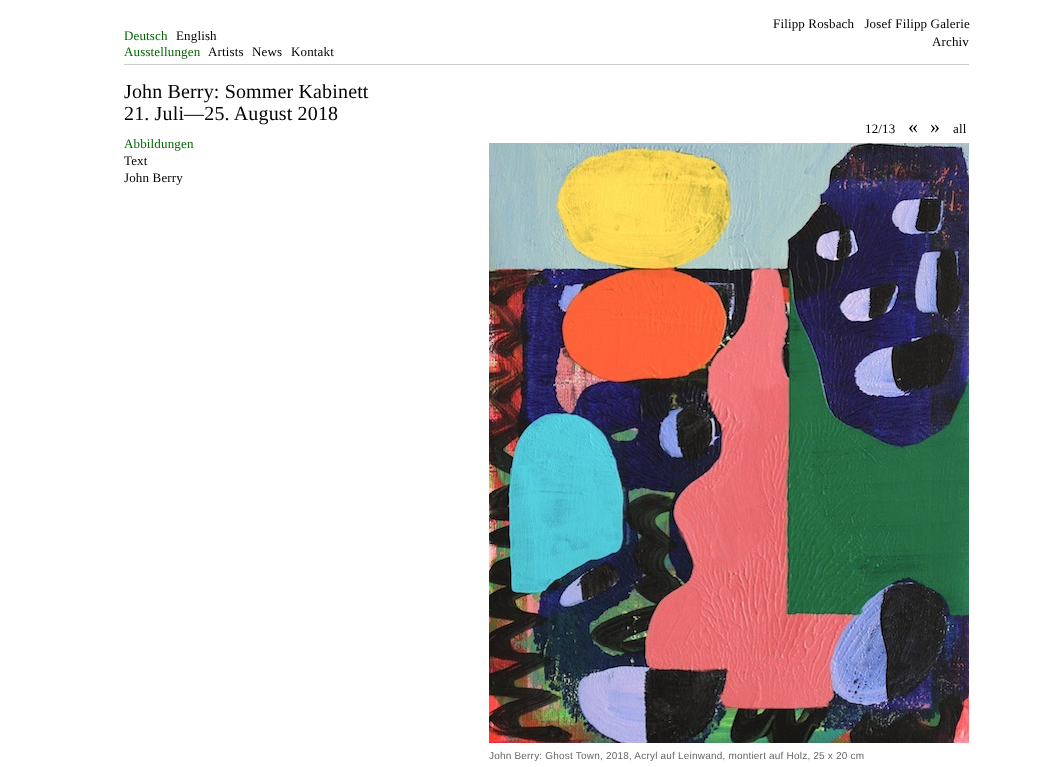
<?xml version="1.0" encoding="UTF-8"?>
<svg xmlns="http://www.w3.org/2000/svg" xmlns:xlink="http://www.w3.org/1999/xlink" width="1063" height="767">
  <rect width="100%" height="100%" fill="#ffffff" />
  <rect x="124" y="64" width="845" height="1" fill="#cccccc" />
  <image x="489" y="143" width="480" height="600" xlink:href="image1.png" />
  <text x="124" y="40" style="font-family: Liberation Serif; font-size: 13px; letter-spacing: 0.15px; fill: #006600">Deutsch</text>
  <text x="176" y="40" style="font-family: Liberation Serif; font-size: 13px; letter-spacing: 0.15px; fill: #000000">English</text>
  <text x="124" y="56" style="font-family: Liberation Serif; font-size: 13px; letter-spacing: 0.15px; fill: #006600">Ausstellungen</text>
  <text x="208" y="56" style="font-family: Liberation Serif; font-size: 13px; letter-spacing: 0.15px; fill: #000000">Artists</text>
  <text x="252" y="56" style="font-family: Liberation Serif; font-size: 13px; letter-spacing: 0.15px; fill: #000000">News</text>
  <text x="291" y="56" style="font-family: Liberation Serif; font-size: 13px; letter-spacing: 0.15px; fill: #000000">Kontakt</text>
  <text x="773" y="28" style="font-family: Liberation Serif; font-size: 13px; letter-spacing: 0.15px; fill: #000000" xml:space="preserve">Filipp Rosbach   Josef Filipp Galerie</text>
  <text x="932" y="46" style="font-family: Liberation Serif; font-size: 13px; letter-spacing: 0.15px; fill: #000000">Archiv</text>
  <text x="124" y="98" style="font-family: Liberation Serif; font-size: 20px; letter-spacing: 0.15px; fill: #000000">John Berry: Sommer Kabinett</text>
  <text x="124" y="120" style="font-family: Liberation Serif; font-size: 20px; letter-spacing: 0.15px; fill: #000000">21. Juli—25. August 2018</text>
  <text x="124" y="148" style="font-family: Liberation Serif; font-size: 13px; letter-spacing: 0.15px; fill: #006600">Abbildungen</text>
  <text x="124" y="165" style="font-family: Liberation Serif; font-size: 13px; letter-spacing: 0.15px; fill: #000000">Text</text>
  <text x="124" y="182" style="font-family: Liberation Serif; font-size: 13px; letter-spacing: 0.15px; fill: #000000">John Berry</text>
  <text x="865" y="133" style="font-family: Liberation Serif; font-size: 13px; letter-spacing: 0.15px; fill: #000000">12/13</text>
  <text x="908" y="133" style="font-family: Liberation Serif; font-size: 20px; letter-spacing: 0.15px; fill: #000000">«</text>
  <text x="930" y="133" style="font-family: Liberation Serif; font-size: 20px; letter-spacing: 0.15px; fill: #000000">»</text>
  <text x="953" y="133" style="font-family: Liberation Serif; font-size: 13px; letter-spacing: 0.15px; fill: #000000">all</text>
  <text x="489" y="759" style="font-family: Liberation Sans; font-size: 10px; letter-spacing: 0.2px; fill: #666666">John Berry: Ghost Town, 2018, Acryl auf Leinwand, montiert auf Holz, 25 x 20 cm</text>
</svg>
